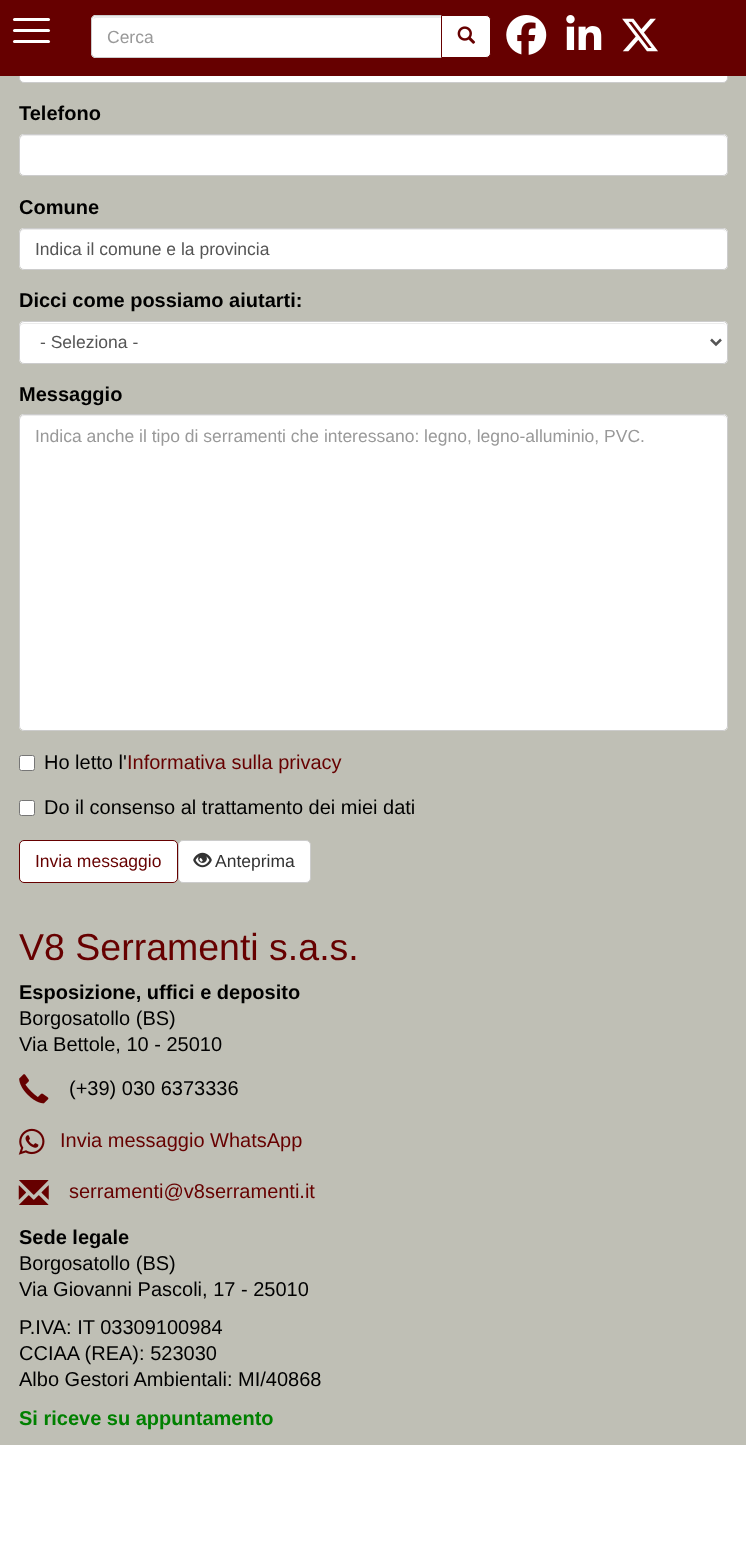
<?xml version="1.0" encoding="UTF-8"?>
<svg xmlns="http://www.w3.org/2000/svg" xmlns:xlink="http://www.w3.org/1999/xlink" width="746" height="1564">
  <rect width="100%" height="100%" fill="#ffffff" />
  <rect y="76" width="746" height="1369" fill="#bfbfb5" />
  <rect x="19.5" y="40.5" width="708" height="42" rx="4.5" fill="#ffffff" stroke="#cccccc" />
  <rect width="746" height="76" fill="#660000" />
  <rect x="13" y="18" width="37" height="3" rx="1.5" fill="#ffffff" />
  <rect x="13" y="29" width="37" height="3" rx="1.5" fill="#ffffff" />
  <rect x="13" y="40" width="37" height="3" rx="1.5" fill="#ffffff" />
  <path d="M 96 15 h 347 v 43 h -347 c -3 0 -5 -2 -5 -5 v -33 c 0 -3 2 -5 5 -5 z" fill="#ffffff" />
  <path d="M 96 18 h 345 v -2 h -344 c -2 0 -3 1 -4 3 z" fill="#ececec" />
  <path d="M 96 15.5 h 346.5 v 42 h -346.5 c -2.5 0 -4.5 -2 -4.5 -4.5 v -33 c 0 -2.5 2 -4.5 4.5 -4.5 z" fill="none" stroke="#cccccc" />
  <path d="M 441.5 15.5 h 44.5 c 2.5 0 4.5 2 4.5 4.5 v 33 c 0 2.5 -2 4.5 -4.5 4.5 h -44.5 z" fill="#ffffff" stroke="#660000" />
  <image x="457" y="26" width="19" height="18" xlink:href="image1.png" />
  <image x="506" y="15" width="41" height="40" xlink:href="image2.png" />
  <image x="566" y="15" width="36" height="35" xlink:href="image3.png" />
  <image x="622" y="18" width="36" height="34" xlink:href="image4.png" />
  <rect x="19" y="134" width="709" height="42" rx="5" fill="#ffffff" />
  <path d="M 24 136 h 698 c 3 0 4 2 4 4 c 0 -3 -1 -5 -4 -5 h -698 l -3 1 l -1 1 v 3 c 0 -2 2 -4 4 -4 z" fill="#ececec" />
  <rect x="19.5" y="134.5" width="708" height="41" rx="4.5" fill="none" stroke="#cccccc" />
  <rect x="19" y="228" width="709" height="42" rx="5" fill="#ffffff" />
  <path d="M 24 230 h 698 c 3 0 4 2 4 4 c 0 -3 -1 -5 -4 -5 h -698 l -3 1 l -1 1 v 3 c 0 -2 2 -4 4 -4 z" fill="#ececec" />
  <rect x="19.5" y="228.5" width="708" height="41" rx="4.5" fill="none" stroke="#cccccc" />
  <rect x="19" y="321" width="709" height="43" rx="5" fill="#ffffff" />
  <path d="M 24 324 h 698 c 3 0 4 1 4 4 c 0 -3 -1 -5 -4 -5 h -698 l -3 1 l -1 1 v 3 c 0 -3 2 -4 4 -4 z" fill="#ececec" />
  <rect x="19.5" y="321.5" width="708" height="42" rx="4.5" fill="none" stroke="#cccccc" />
  <path d="M 711 339.5 l 5 5 l 5 -5" fill="none" stroke="#555555" stroke-width="2.5" />
  <rect x="19" y="414" width="709" height="317" rx="5" fill="#ffffff" />
  <path d="M 24 416 h 698 c 3 0 4 2 4 4 c 0 -3 -1 -5 -4 -5 h -698 l -3 1 l -1 1 v 3 c 0 -2 2 -4 4 -4 z" fill="#ececec" />
  <rect x="19.5" y="414.5" width="708" height="316" rx="4.5" fill="none" stroke="#cccccc" />
  <rect x="19.5" y="755.5" width="15" height="15" rx="2" fill="#ffffff" stroke="#767676" />
  <rect x="19.5" y="800.5" width="15" height="15" rx="2" fill="#ffffff" stroke="#767676" />
  <rect x="19.5" y="840.5" width="158" height="42" rx="4.5" fill="#ffffff" stroke="#660000" />
  <rect x="178.5" y="840.5" width="132" height="42" rx="4.5" fill="#ffffff" stroke="#cccccc" />
  <image x="193" y="852" width="19" height="16" xlink:href="image5.png" />
  <image x="19" y="1074" width="30" height="30" xlink:href="image6.png" />
  <image x="18" y="1128" width="27" height="27" xlink:href="image7.png" />
  <image x="18" y="1180" width="31" height="25" xlink:href="image8.png" />
  <text x="107" y="43" style="font-family: Liberation Sans; font-size: 17.5px; fill: #999999">Cerca</text>
  <text x="19" y="120" style="font-family: Liberation Sans; font-size: 20px; font-weight: bold; fill: #000000">Telefono</text>
  <text x="19" y="214" style="font-family: Liberation Sans; font-size: 20px; font-weight: bold; fill: #000000">Comune</text>
  <text x="35" y="255" style="font-family: Liberation Sans; font-size: 17.5px; fill: #555555">Indica il comune e la provincia</text>
  <text x="19" y="307" style="font-family: Liberation Sans; font-size: 20px; font-weight: bold; fill: #000000">Dicci come possiamo aiutarti:</text>
  <text x="40" y="348" style="font-family: Liberation Sans; font-size: 17.5px; fill: #555555">- Seleziona -</text>
  <text x="19" y="401" style="font-family: Liberation Sans; font-size: 20px; font-weight: bold; fill: #000000">Messaggio</text>
  <text x="35" y="442" style="font-family: Liberation Sans; font-size: 17.5px; fill: #999999">Indica anche il tipo di serramenti che interessano: legno, legno-alluminio, PVC.</text>
  <text x="44" y="769" style="font-family: Liberation Sans; font-size: 20px; fill: #000000">Ho letto l'</text>
  <text x="127" y="769" style="font-family: Liberation Sans; font-size: 20px; fill: #660000">Informativa sulla privacy</text>
  <text x="44" y="814" style="font-family: Liberation Sans; font-size: 20px; fill: #000000">Do il consenso al trattamento dei miei dati</text>
  <text x="35" y="867" style="font-family: Liberation Sans; font-size: 17.5px; fill: #660000">Invia messaggio</text>
  <text x="215" y="867" style="font-family: Liberation Sans; font-size: 17.5px; fill: #333333">Anteprima</text>
  <text x="19" y="960" style="font-family: Liberation Sans; font-size: 37.5px; fill: #660000">V8 Serramenti s.a.s.</text>
  <text x="19" y="999" style="font-family: Liberation Sans; font-size: 20px; font-weight: bold; fill: #000000">Esposizione, uffici e deposito</text>
  <text x="19" y="1025" style="font-family: Liberation Sans; font-size: 20px; fill: #000000">Borgosatollo (BS)</text>
  <text x="19" y="1051" style="font-family: Liberation Sans; font-size: 20px; fill: #000000">Via Bettole, 10 - 25010</text>
  <text x="69" y="1095" style="font-family: Liberation Sans; font-size: 20px; fill: #000000">(+39) 030 6373336</text>
  <text x="60" y="1147" style="font-family: Liberation Sans; font-size: 20px; fill: #660000">Invia messaggio WhatsApp</text>
  <text x="69" y="1198" style="font-family: Liberation Sans; font-size: 20px; fill: #660000">serramenti@v8serramenti.it</text>
  <text x="19" y="1244" style="font-family: Liberation Sans; font-size: 20px; font-weight: bold; fill: #000000">Sede legale</text>
  <text x="19" y="1270" style="font-family: Liberation Sans; font-size: 20px; fill: #000000">Borgosatollo (BS)</text>
  <text x="19" y="1296" style="font-family: Liberation Sans; font-size: 20px; fill: #000000">Via Giovanni Pascoli, 17 - 25010</text>
  <text x="19" y="1334" style="font-family: Liberation Sans; font-size: 20px; fill: #000000">P.IVA: IT 03309100984</text>
  <text x="19" y="1360" style="font-family: Liberation Sans; font-size: 20px; fill: #000000">CCIAA (REA): 523030</text>
  <text x="19" y="1386" style="font-family: Liberation Sans; font-size: 20px; fill: #000000">Albo Gestori Ambientali: MI/40868</text>
  <text x="19" y="1425" style="font-family: Liberation Sans; font-size: 20px; font-weight: bold; fill: #008000">Si riceve su appuntamento</text>
</svg>
